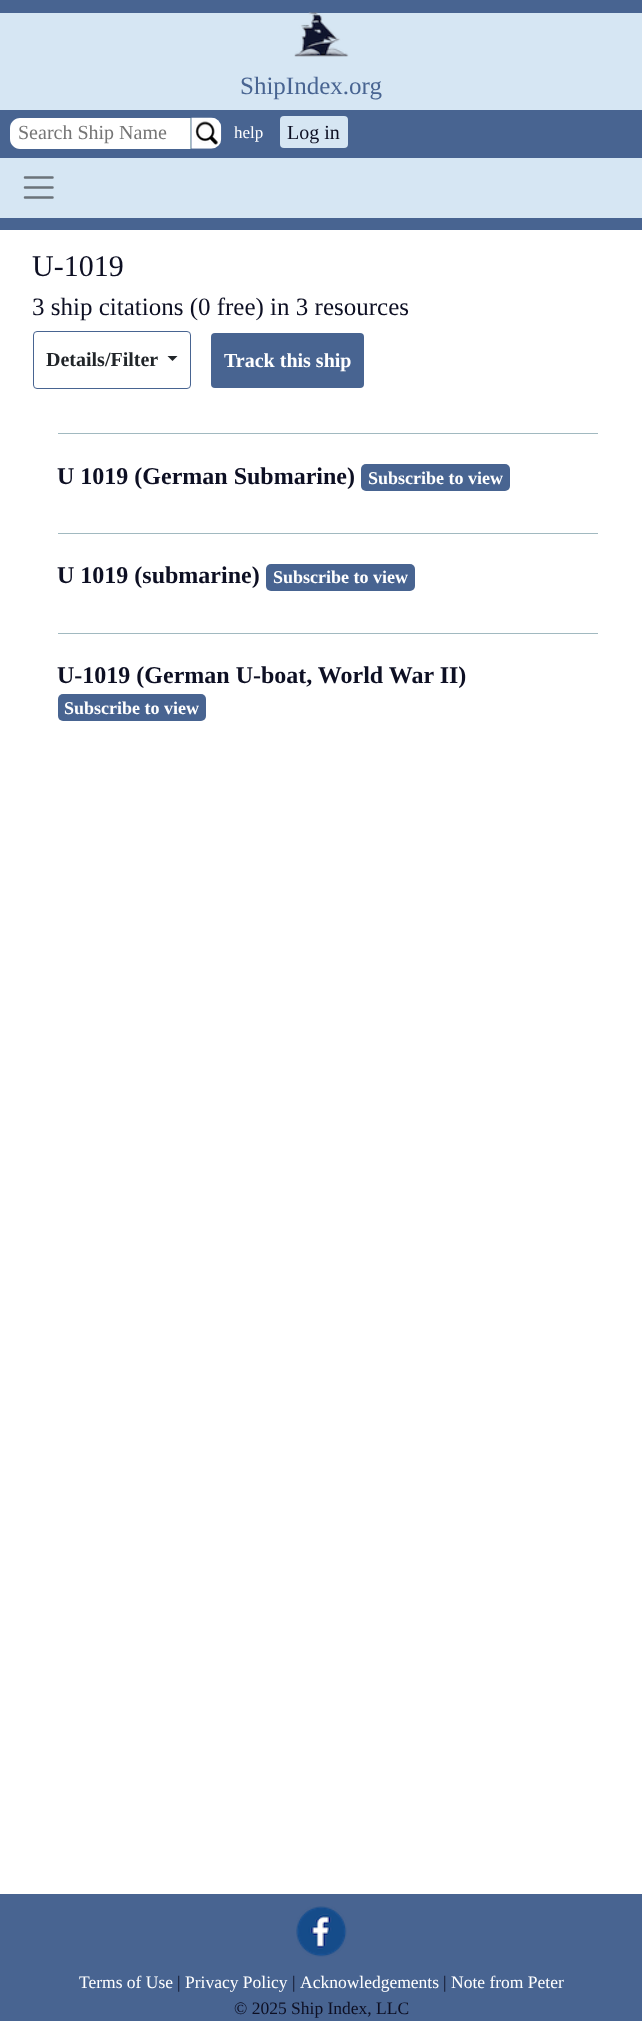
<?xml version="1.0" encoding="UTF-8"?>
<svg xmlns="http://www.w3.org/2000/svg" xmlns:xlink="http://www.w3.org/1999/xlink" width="642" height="2021">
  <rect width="100%" height="100%" fill="#ffffff" />
  <rect width="642" height="230" fill="#486491" />
  <rect y="13" width="642" height="97" fill="#d6e6f3" />
  <image x="294" y="12" width="55" height="45" xlink:href="image1.png" />
  <path d="M 20 118 h 170 v 31 h -170 c -5.5 0 -10 -4.5 -10 -10 v -11 c 0 -5.5 4.5 -10 10 -10 z" fill="#ffffff" />
  <rect x="190" y="118" width="1" height="31" fill="#a1b9c0" />
  <image x="191" y="117" width="31" height="32" xlink:href="image2.png" />
  <rect x="280" y="116" width="68" height="32" rx="4" fill="#d6e6f3" />
  <rect y="158" width="642" height="60" fill="#d6e6f3" />
  <path d="M 25 177.5 h 27.5 m -27.5 10 h 27.5 m -27.5 10 h 27.5" fill="none" stroke="#6b737a" stroke-width="2.5" stroke-linecap="round" />
  <rect x="33.5" y="331.5" width="157" height="57" rx="3.5" fill="none" stroke="#486491" />
  <path d="M 167.5 356 h 10 l -5 5 z" fill="#212529" />
  <rect x="211" y="333" width="153" height="55" rx="4" fill="#486491" />
  <rect x="58" y="433" width="540" height="1" fill="#a1b9c0" />
  <rect x="361" y="464" width="149" height="27" rx="5" fill="#486491" />
  <rect x="58" y="533" width="540" height="1" fill="#a1b9c0" />
  <rect x="266" y="564" width="149" height="27" rx="5" fill="#486491" />
  <rect x="58" y="633" width="540" height="1" fill="#a1b9c0" />
  <rect x="58" y="694" width="148" height="27" rx="5" fill="#486491" />
  <rect y="1894" width="642" height="127" fill="#486491" />
  <image x="296" y="1906" width="51" height="51" xlink:href="image3.png" />
  <text x="240" y="94" style="font-family: Liberation Serif; font-size: 25px; fill: #486491">ShipIndex.org</text>
  <text x="18" y="139" style="font-family: Liberation Serif; font-size: 20px; fill: #757575">Search Ship Name</text>
  <text x="234" y="138" style="font-family: Liberation Serif; font-size: 17px; fill: #ffffff">help</text>
  <text x="287" y="139" style="font-family: Liberation Serif; font-size: 20px; fill: #0d0f23">Log in</text>
  <text x="32" y="276" style="font-family: Liberation Serif; font-size: 30px; fill: #0d0f23">U-1019</text>
  <text x="32" y="315" style="font-family: Liberation Serif; font-size: 25px; fill: #0d0f23">3 ship citations (0 free) in 3 resources</text>
  <text x="46" y="366" style="font-family: Liberation Serif; font-size: 20px; font-weight: bold; fill: #212529">Details/Filter</text>
  <text x="224" y="367" style="font-family: Liberation Serif; font-size: 20px; font-weight: bold; fill: #ffffff">Track this ship</text>
  <text x="57" y="484" style="font-family: Liberation Serif; font-size: 24px; font-weight: bold; fill: #0d0f23">U 1019 (German Submarine)</text>
  <text x="368" y="484" style="font-family: Liberation Serif; font-size: 18px; font-weight: bold; fill: #ffffff">Subscribe to view</text>
  <text x="57" y="583" style="font-family: Liberation Serif; font-size: 24px; font-weight: bold; fill: #0d0f23">U 1019 (submarine)</text>
  <text x="273" y="583" style="font-family: Liberation Serif; font-size: 18px; font-weight: bold; fill: #ffffff">Subscribe to view</text>
  <text x="57" y="683" style="font-family: Liberation Serif; font-size: 24px; font-weight: bold; fill: #0d0f23">U-1019 (German U-boat, World War II)</text>
  <text x="64" y="714" style="font-family: Liberation Serif; font-size: 18px; font-weight: bold; fill: #ffffff">Subscribe to view</text>
  <text x="79" y="1988" style="font-family: Liberation Serif; font-size: 17.5px; fill: #ffffff">Terms of Use</text>
  <text x="177" y="1988" style="font-family: Liberation Serif; font-size: 17.5px; fill: #0d0f23">|</text>
  <text x="185" y="1988" style="font-family: Liberation Serif; font-size: 17.5px; fill: #ffffff">Privacy Policy</text>
  <text x="292" y="1988" style="font-family: Liberation Serif; font-size: 17.5px; fill: #0d0f23">|</text>
  <text x="300" y="1988" style="font-family: Liberation Serif; font-size: 17.5px; fill: #ffffff">Acknowledgements</text>
  <text x="443" y="1988" style="font-family: Liberation Serif; font-size: 17.5px; fill: #0d0f23">|</text>
  <text x="451" y="1988" style="font-family: Liberation Serif; font-size: 17.5px; fill: #ffffff">Note from Peter</text>
  <text x="234" y="2014" style="font-family: Liberation Serif; font-size: 17.5px; fill: #0d0f23">© 2025 Ship Index, LLC</text>
</svg>
